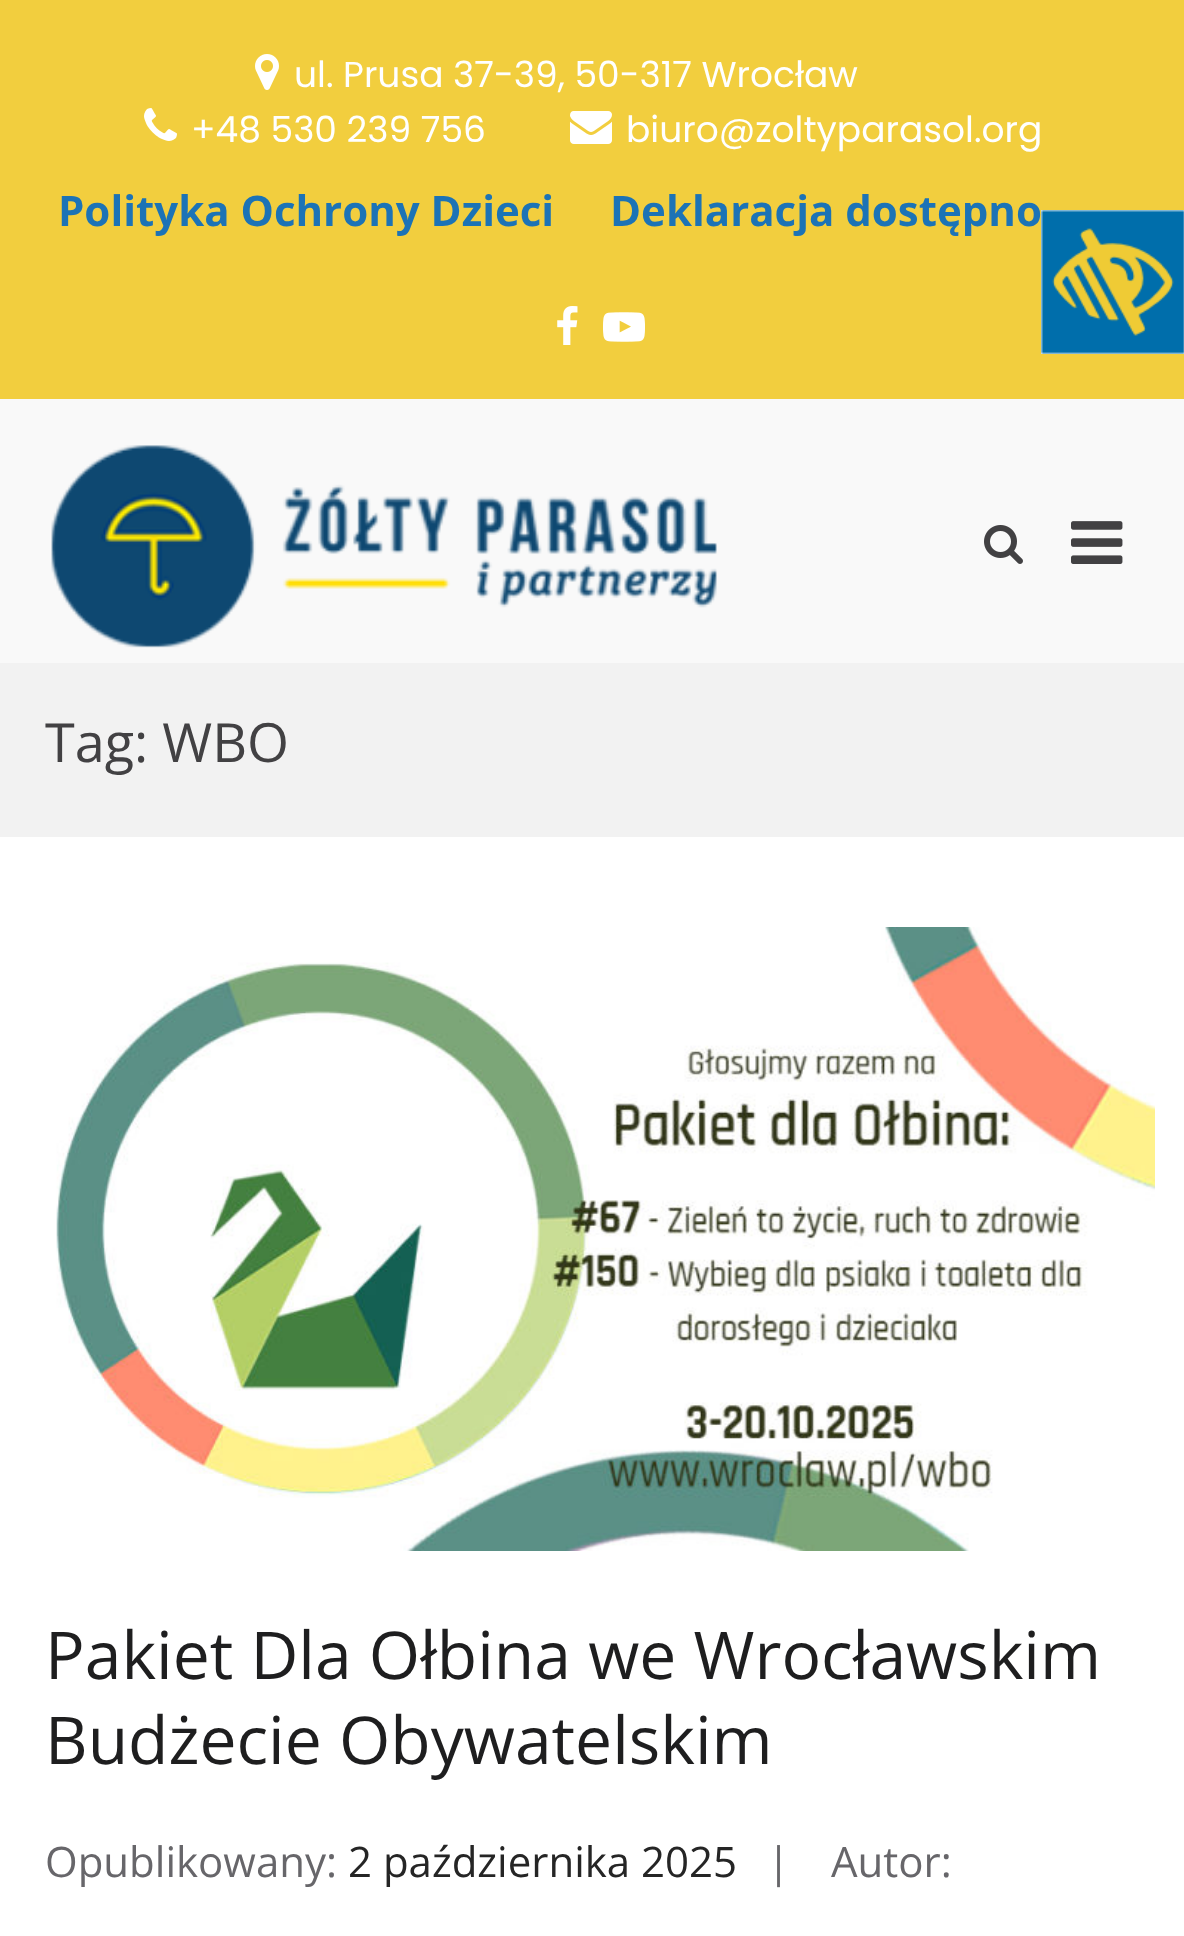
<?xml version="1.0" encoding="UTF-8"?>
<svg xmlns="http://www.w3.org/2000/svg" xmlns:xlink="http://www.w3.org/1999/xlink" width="1184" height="1936">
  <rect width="100%" height="100%" fill="#ffffff" />
  <rect width="1184" height="399" fill="#f2ce3e" />
  <image x="255" y="54" width="24" height="36" xlink:href="image1.png" />
  <image x="144" y="108" width="33" height="33" xlink:href="image2.png" />
  <image x="570" y="111" width="42" height="33" xlink:href="image3.png" />
  <image x="557" y="306" width="21" height="39" xlink:href="image4.png" />
  <image x="603" y="312" width="42" height="30" xlink:href="image5.png" />
  <rect y="399" width="1184" height="264" fill="#f9f9f9" />
  <image x="51" y="445" width="666" height="203" xlink:href="image6.png" />
  <image x="984" y="525" width="39" height="39" xlink:href="image7.png" />
  <image x="1071" y="521" width="52" height="43" xlink:href="image8.png" />
  <rect y="663" width="1184" height="174" fill="#f2f2f2" />
  <image x="56" y="927" width="1099" height="624" xlink:href="image9.png" />
  <image x="1041" y="210" width="143" height="144" xlink:href="image10.png" />
  <text x="294" y="87" style="font-family: Poppins; font-size: 36px; fill: #ffffff">ul. Prusa 37-39, 50-317 Wrocław</text>
  <text x="191" y="142" style="font-family: Poppins; font-size: 36px; fill: #ffffff">+48 530 239 756</text>
  <text x="626" y="142" style="font-family: Poppins; font-size: 36px; fill: #ffffff">biuro@zoltyparasol.org</text>
  <text x="58" y="226" style="font-family: Open Sans; font-size: 42px; font-weight: bold; fill: #1c73b6">Polityka Ochrony Dzieci</text>
  <text x="610" y="226" style="font-family: Open Sans; font-size: 42px; font-weight: bold; fill: #1c73b6">Deklaracja dostępno</text>
  <text x="45" y="762" style="font-family: Open Sans; font-size: 54px; fill: #424143">Tag: WBO</text>
  <text x="45" y="1679" style="font-family: Open Sans; font-size: 66px; fill: #1e1e1f">Pakiet Dla Ołbina we Wrocławskim</text>
  <text x="45" y="1764" style="font-family: Open Sans; font-size: 66px; fill: #1e1e1f">Budżecie Obywatelskim</text>
  <text x="45" y="1877" style="font-family: Open Sans; font-size: 42px; fill: #67666a">Opublikowany:</text>
  <text x="348" y="1877" style="font-family: Open Sans; font-size: 42px; fill: #252525">2 października 2025</text>
  <text x="767" y="1877" style="font-family: Open Sans; font-size: 42px; fill: #67666a">|</text>
  <text x="831" y="1877" style="font-family: Open Sans; font-size: 42px; fill: #67666a">Autor:</text>
</svg>
